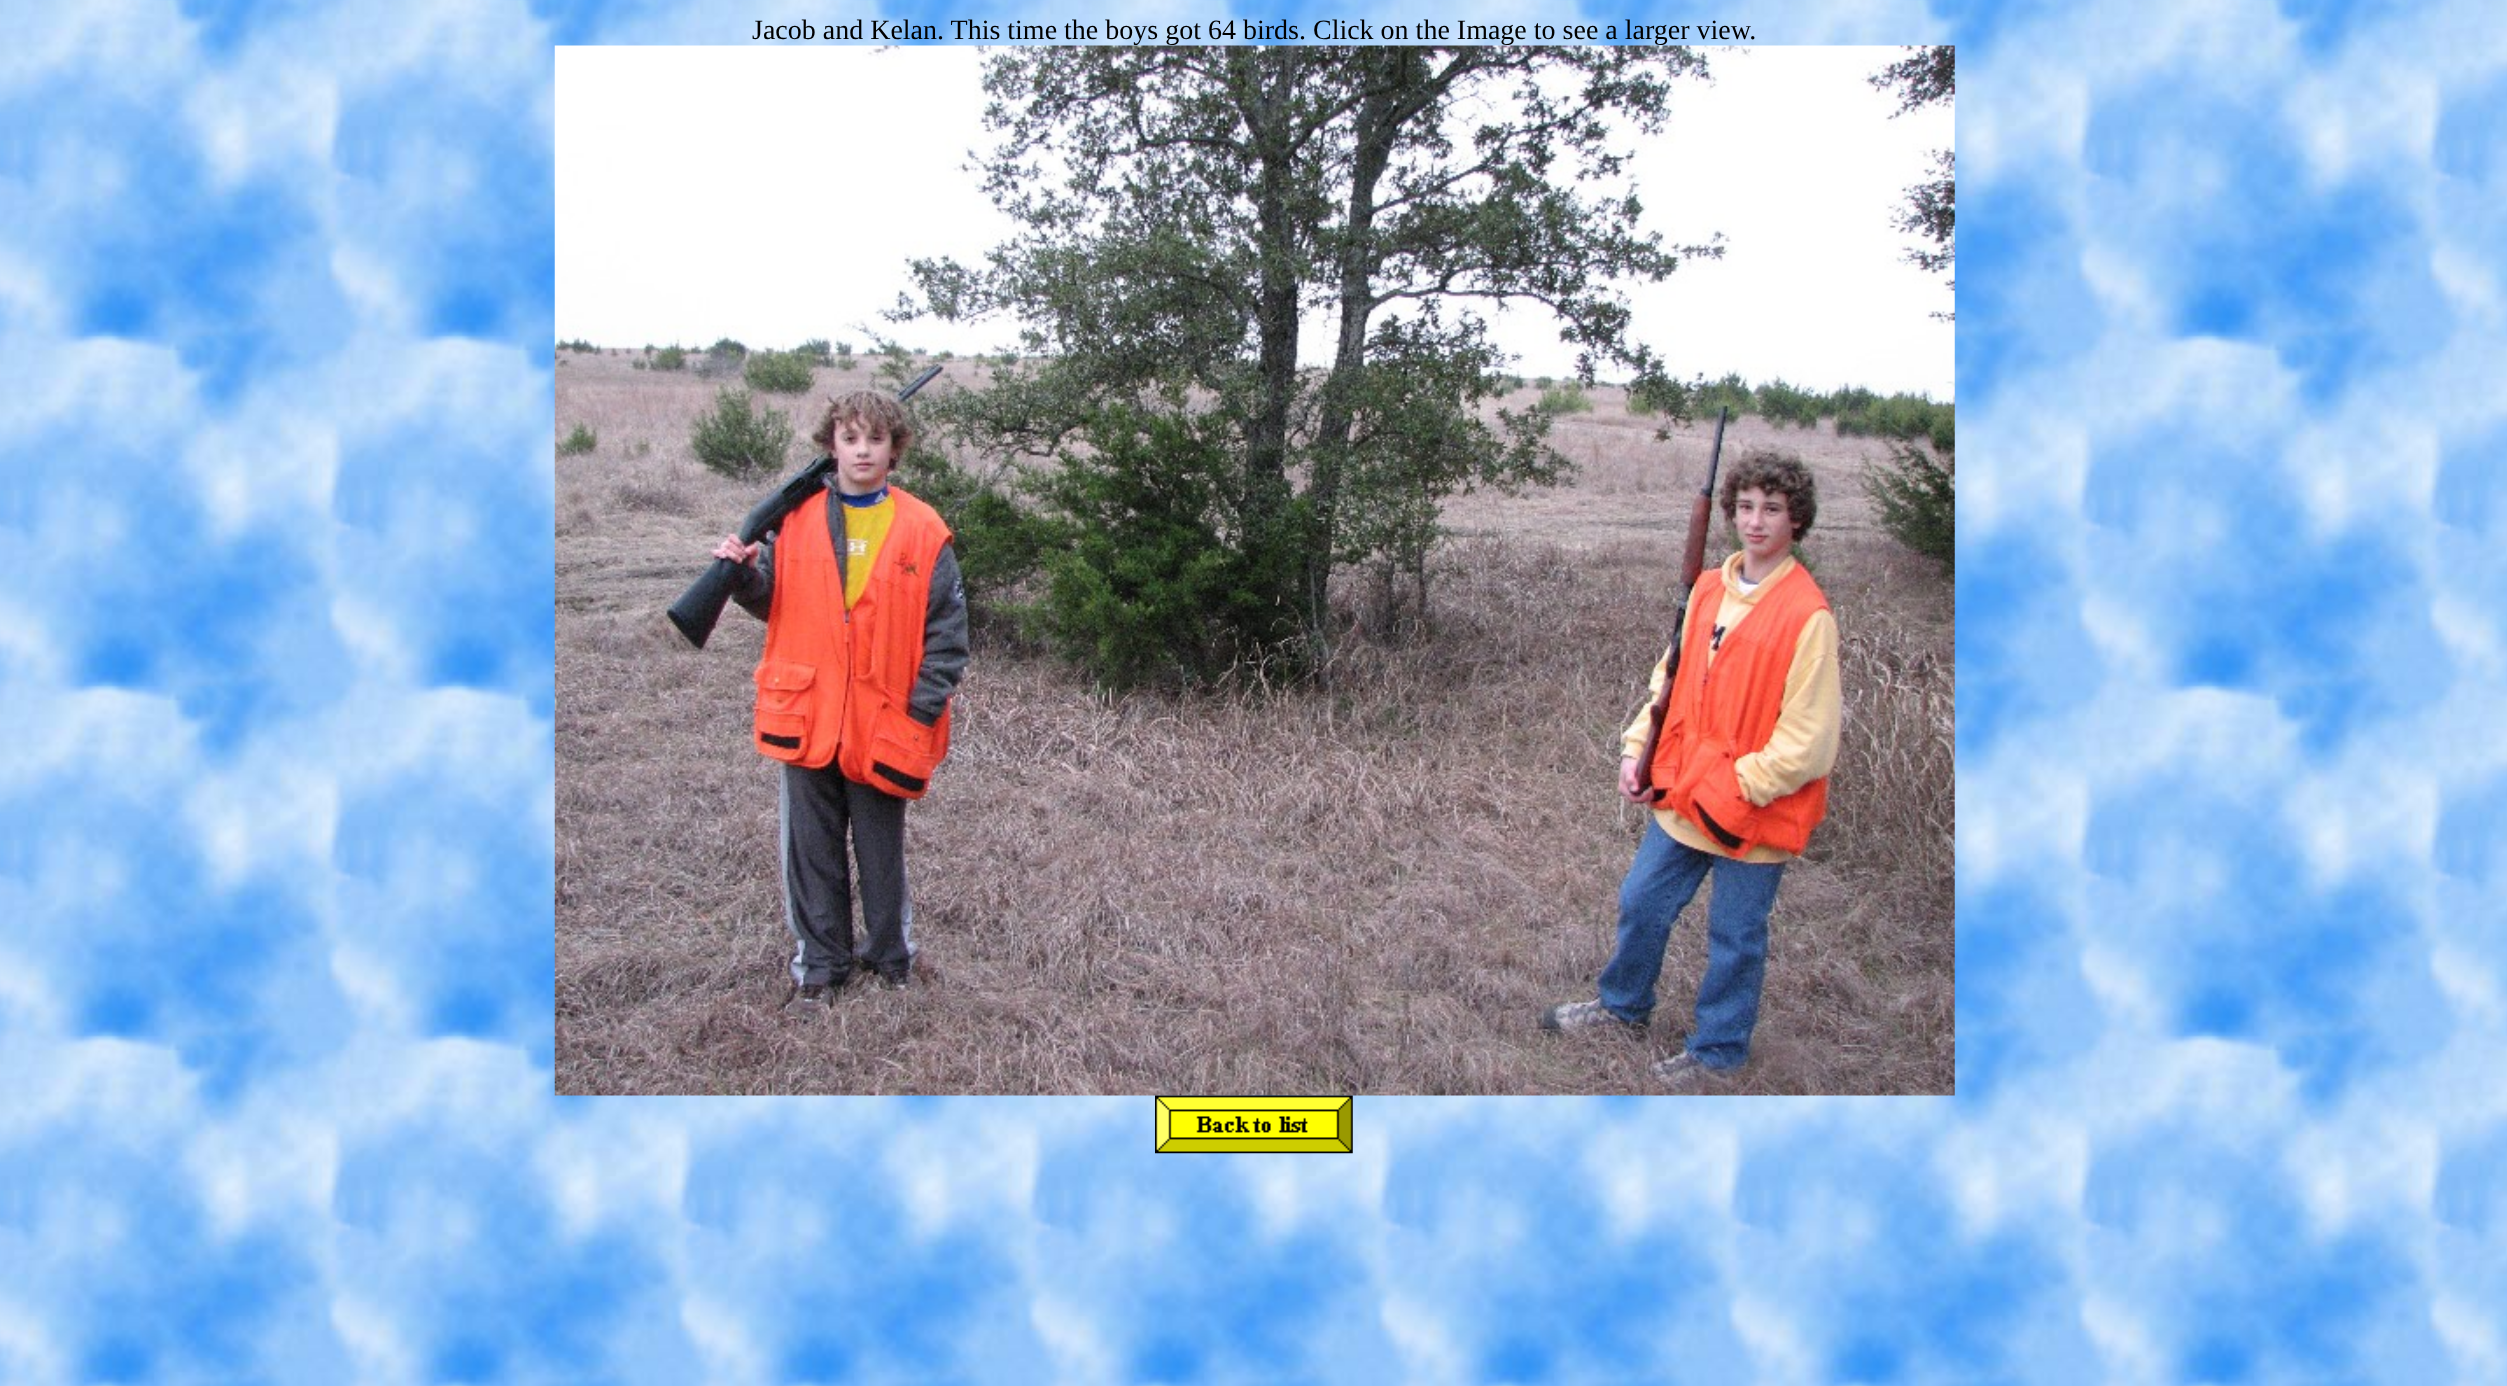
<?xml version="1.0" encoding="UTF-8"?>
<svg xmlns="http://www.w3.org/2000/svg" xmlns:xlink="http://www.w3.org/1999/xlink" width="2507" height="1386">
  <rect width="100%" height="100%" fill="#ffffff" />
  <image x="0" y="0" width="2507" height="1386" xlink:href="image1.png" />
  <text x="752" y="39" style="font-family: Liberation Serif; font-size: 28px; fill: #000000">Jacob and Kelan. This time the boys got 64 birds. Click on the Image to see a larger view.</text>
  <image x="554" y="45" width="1401" height="1051" xlink:href="image2.png" />
  <image x="1155" y="1095" width="198" height="59" xlink:href="image3.png" />
</svg>
